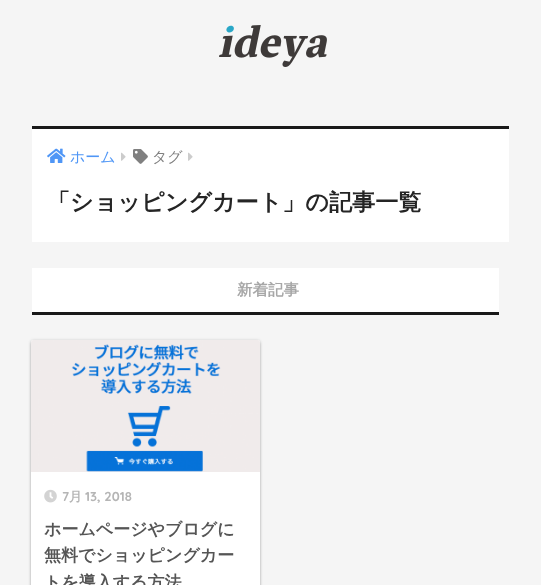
<?xml version="1.0" encoding="UTF-8"?>
<svg xmlns="http://www.w3.org/2000/svg" xmlns:xlink="http://www.w3.org/1999/xlink" width="541" height="585">
  <rect width="100%" height="100%" fill="#f5f5f5" />
  <image x="219" y="25" width="108" height="42" xlink:href="image1.png" />
  <rect x="32" y="129" width="477" height="113" fill="#ffffff" />
  <rect x="32" y="126" width="477" height="3" fill="#191919" />
  <image x="47" y="148" width="19" height="15" xlink:href="image2.png" />
  <image x="121" y="152" width="5" height="9" xlink:href="image3.png" />
  <image x="133" y="149" width="15" height="15" xlink:href="image4.png" />
  <image x="188" y="152" width="5" height="9" xlink:href="image3.png" />
  <rect x="32" y="268" width="467" height="44" fill="#ffffff" />
  <rect x="32" y="312" width="467" height="3" fill="#191919" />
  <rect x="31" y="342" width="229" height="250" rx="2" fill="#000000" fill-opacity="0.22" filter="blur(1.5px)" />
  <rect x="31" y="340" width="229" height="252" rx="2" fill="#000000" fill-opacity="0.12" filter="blur(1.5px)" />
  <rect x="31" y="340" width="229" height="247" rx="2" fill="#ffffff" />
  <image x="31" y="340" width="229" height="132" xlink:href="image5.png" />
  <image x="44" y="489" width="13" height="14" xlink:href="image6.png" />
  <text x="70" y="162" style="font-family: WenQuanYi Zen Hei; font-size: 15px; font-weight: 500; fill: #4f96f6">ホーム</text>
  <text x="152" y="162" style="font-family: WenQuanYi Zen Hei; font-size: 15px; font-weight: 500; fill: #808080">タグ</text>
  <text x="47" y="210" style="font-family: WenQuanYi Zen Hei; font-size: 23.1px; font-weight: bold; fill: #252525">「ショッピングカート」の記事一覧</text>
  <text x="237" y="295" style="font-family: WenQuanYi Zen Hei; font-size: 15.5px; font-weight: bold; fill: #a7a7a7">新着記事</text>
  <text x="62" y="501" style="font-family: Quicksand; font-size: 13px; font-weight: bold; fill: #b5b5b5">7</text>
  <text x="69" y="501" style="font-family: WenQuanYi Zen Hei; font-size: 13px; font-weight: bold; fill: #b5b5b5">月</text>
  <text x="85" y="501" style="font-family: Quicksand; font-size: 13px; font-weight: bold; fill: #b5b5b5">13, 2018</text>
  <text x="44" y="535" style="font-family: WenQuanYi Zen Hei; font-size: 17px; font-weight: bold; fill: #555555">ホームページやブログに</text>
  <text x="44" y="561" style="font-family: WenQuanYi Zen Hei; font-size: 17px; font-weight: bold; fill: #555555">無料でショッピングカー</text>
  <text x="44" y="588" style="font-family: WenQuanYi Zen Hei; font-size: 17px; font-weight: bold; fill: #555555">トを導入する方法</text>
</svg>
